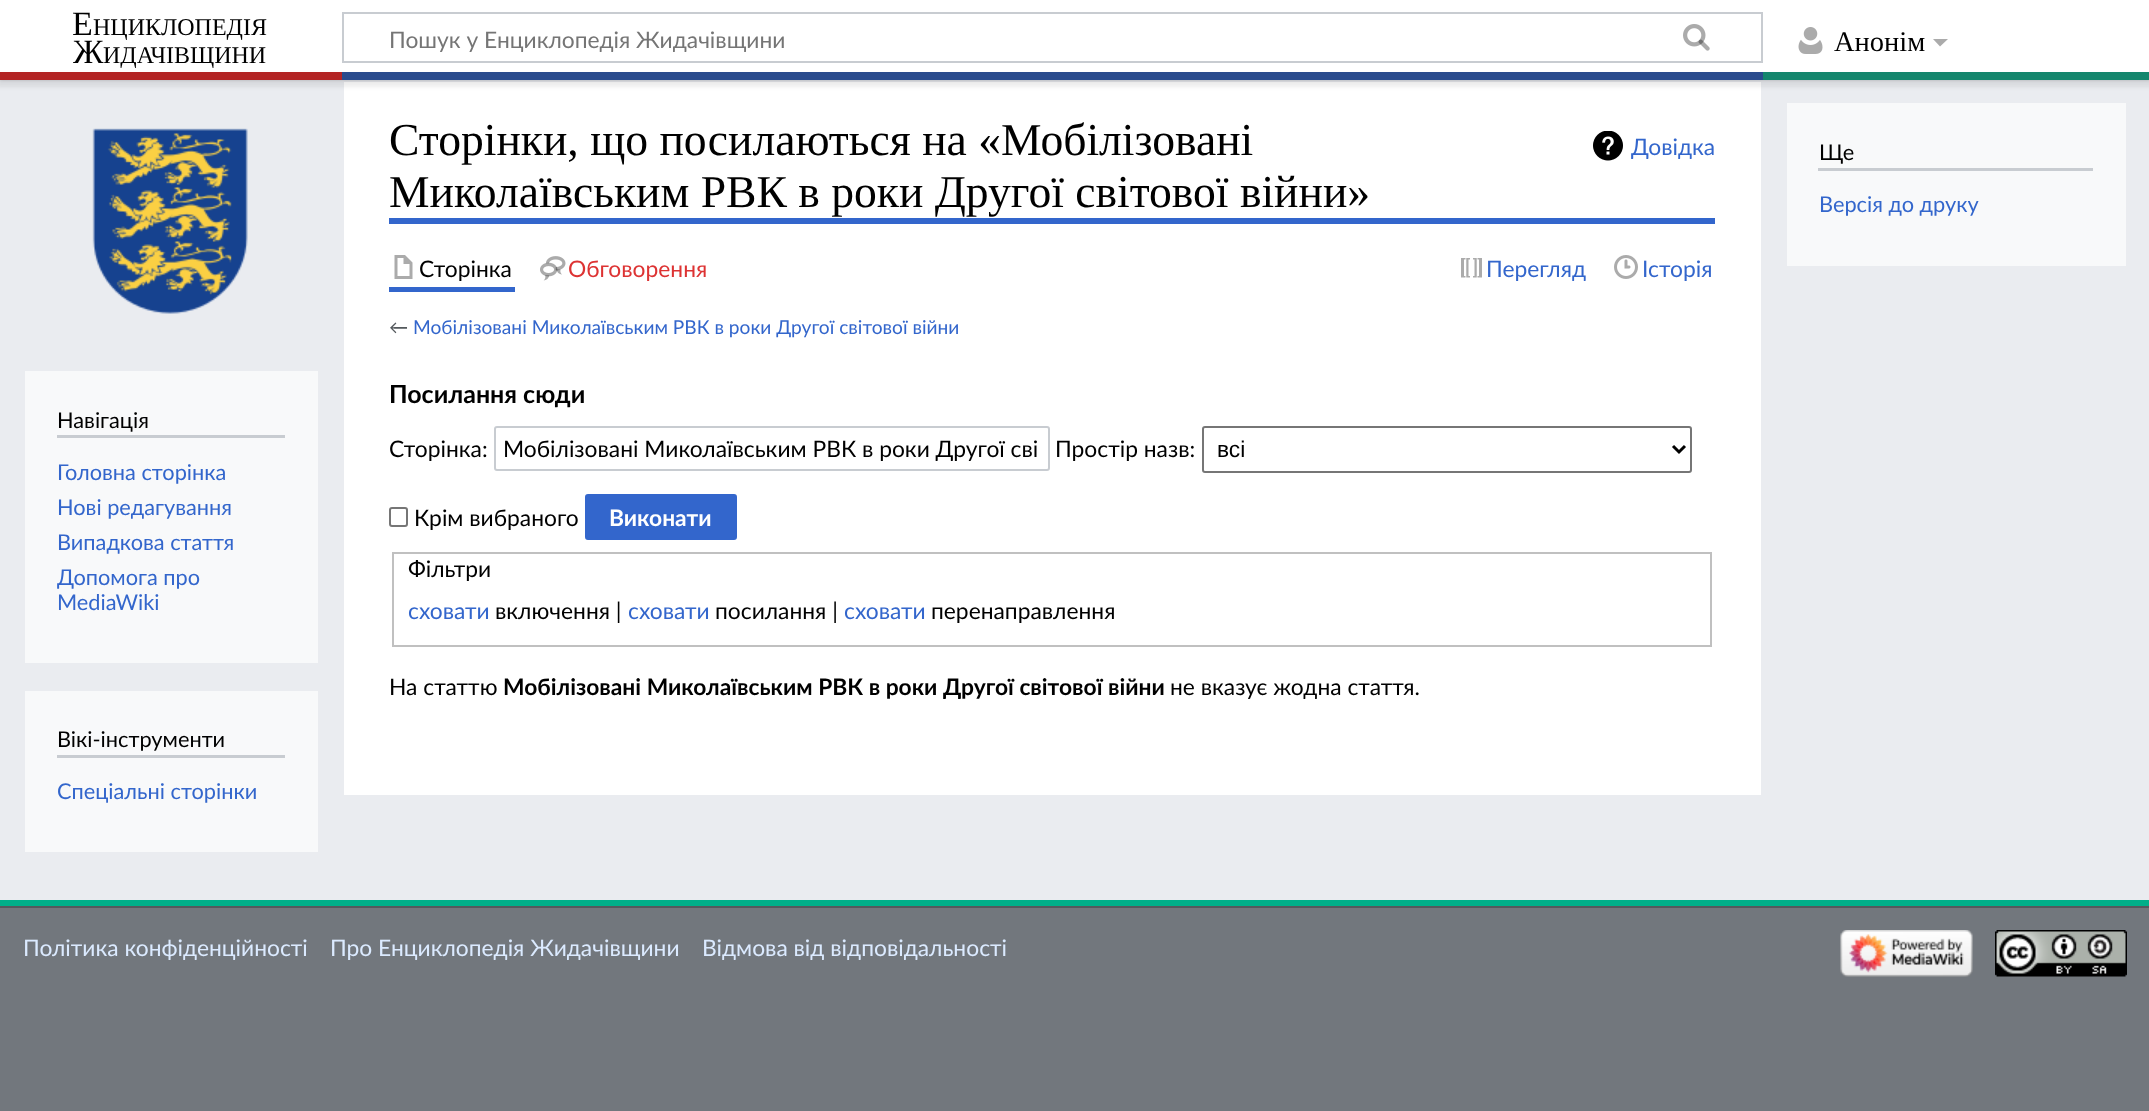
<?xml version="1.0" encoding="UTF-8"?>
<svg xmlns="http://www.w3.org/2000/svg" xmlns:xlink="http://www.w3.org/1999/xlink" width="2149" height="1111">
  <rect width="100%" height="100%" fill="#72777d" />
  <rect y="80" width="2149" height="820" fill="#eaecf0" />
  <rect x="344" y="82" width="1417" height="713" fill="#ffffff" />
  <rect y="72" width="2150" height="8" fill="#000000" fill-opacity="0.2" filter="blur(1.5px)" />
  <rect x="-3" y="74" width="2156" height="13" fill="#000000" fill-opacity="0.07" filter="blur(2px)" />
  <rect width="2149" height="72" fill="#ffffff" />
  <rect x="343" y="13" width="1419" height="49" fill="none" stroke="#c8ccd1" stroke-width="2" />
  <image x="1683" y="24" width="27" height="27" xlink:href="image1.png" />
  <image x="1798" y="27" width="25" height="27" xlink:href="image2.png" />
  <path d="M 1948 39 l -8 7.5 l -7 -7.5 z" fill="#ababab" />
  <rect y="72" width="342" height="8" fill="#b32424" />
  <rect x="342" y="72" width="1421" height="8" fill="#2a4b8d" />
  <rect x="1763" y="72" width="386" height="8" fill="#14866d" />
  <rect y="900" width="2149" height="6" fill="#00af89" />
  <rect x="389" y="218" width="1326" height="6" fill="#3366cc" />
  <image x="1593" y="131" width="30" height="30" xlink:href="image3.png" />
  <rect x="389" y="287" width="126" height="5" fill="#3366cc" />
  <image x="394" y="255" width="19" height="24" xlink:href="image4.png" />
  <image x="540" y="256" width="26" height="25" xlink:href="image5.png" />
  <image x="1461" y="258" width="21" height="20" xlink:href="image6.png" />
  <image x="1614" y="255" width="24" height="24" xlink:href="image7.png" />
  <rect x="495" y="427" width="554" height="43" rx="2" fill="none" stroke="#c8ccd1" stroke-width="2" />
  <rect x="1203" y="427" width="488" height="45" rx="2" fill="none" stroke="#767676" stroke-width="2" />
  <path d="M 1673 446 l 6 6 l 6 -6" fill="none" stroke="#000000" stroke-width="3" />
  <rect x="390" y="508" width="17" height="18" rx="2" fill="none" stroke="#767676" stroke-width="2" />
  <rect x="586" y="495" width="150" height="44" rx="2" fill="#3366cc" stroke="#3366cc" stroke-width="2" />
  <rect x="393" y="553" width="1318" height="93" fill="none" stroke="#c0c0c0" stroke-width="2" />
  <rect x="1787" y="103" width="339" height="163" fill="#f8f9fa" />
  <rect x="1818" y="168" width="275" height="3" fill="#c8ccd1" />
  <image x="92" y="128" width="156" height="186" xlink:href="image8.png" />
  <rect x="25" y="371" width="293" height="292" fill="#f8f9fa" />
  <rect x="57" y="435" width="228" height="3" fill="#c8ccd1" />
  <rect x="25" y="691" width="293" height="161" fill="#f8f9fa" />
  <rect x="57" y="755" width="228" height="3" fill="#c8ccd1" />
  <rect y="906" width="2149" height="2" fill="#54595d" />
  <image x="1840" y="930" width="133" height="47" xlink:href="image9.png" />
  <image x="1995" y="930" width="132" height="47" xlink:href="image10.png" />
  <text x="72" y="35" style="font-family: Liberation Serif; font-size: 34px; fill: #000000">Е</text>
  <text x="93" y="35" style="font-family: Liberation Serif; font-size: 24px; fill: #000000">НЦИКЛОПЕДІЯ</text>
  <text x="73" y="63" style="font-family: Liberation Serif; font-size: 34px; fill: #000000">Ж</text>
  <text x="103" y="63" style="font-family: Liberation Serif; font-size: 24px; fill: #000000">ИДАЧІВЩИНИ</text>
  <text x="389" y="48" style="font-family: Lato; font-size: 22.8px; fill: #757575">Пошук у Енциклопедія Жидачівщини</text>
  <text x="1834" y="51" style="font-family: Liberation Serif; font-size: 28.5px; fill: #000000">Анонім</text>
  <text x="389" y="155" style="font-family: Liberation Serif; font-size: 45.6px; fill: #000000">Сторінки, що посилаються на «Мобілізовані</text>
  <text x="389" y="207" style="font-family: Liberation Serif; font-size: 45.6px; fill: #000000">Миколаївським РВК в роки Другої світової війни»</text>
  <text x="1631" y="155" style="font-family: Lato; font-size: 22.8px; fill: #3366cc">Довідка</text>
  <text x="419" y="277" style="font-family: Lato; font-size: 22.8px; fill: #000000">Сторінка</text>
  <text x="568" y="277" style="font-family: Lato; font-size: 22.8px; fill: #dd3333">Обговорення</text>
  <text x="1486" y="277" style="font-family: Lato; font-size: 22.8px; fill: #3366cc">Перегляд</text>
  <text x="1642" y="277" style="font-family: Lato; font-size: 22.8px; fill: #3366cc">Історія</text>
  <text x="389" y="334" style="font-family: Lato; font-size: 19.15px; fill: #54595d">←</text>
  <text x="413" y="334" style="font-family: Lato; font-size: 19.15px; fill: #3366cc">Мобілізовані Миколаївським РВК в роки Другої світової війни</text>
  <text x="389" y="403" style="font-family: Lato; font-size: 25px; font-weight: bold; fill: #000000">Посилання сюди</text>
  <text x="389" y="457" style="font-family: Lato; font-size: 22.8px; fill: #000000">Сторінка:</text>
  <text x="503" y="457" style="font-family: Lato; font-size: 22.8px; fill: #000000">Мобілізовані Миколаївським РВК в роки Другої сві</text>
  <text x="1055" y="457" style="font-family: Lato; font-size: 22.8px; fill: #000000">Простір назв:</text>
  <text x="1217" y="457" style="font-family: Liberation Sans; font-size: 22.8px; fill: #000000">всі</text>
  <text x="414" y="526" style="font-family: Lato; font-size: 22.8px; fill: #000000">Крім вибраного</text>
  <text x="609" y="526" style="font-family: Lato; font-size: 22.8px; font-weight: bold; fill: #ffffff">Виконати</text>
  <text x="408" y="577" style="font-family: Lato; font-size: 22.8px; fill: #000000">Фільтри</text>
  <text x="408" y="619" style="font-family: Lato; font-size: 22.8px; fill: #3366cc">сховати</text>
  <text x="495" y="619" style="font-family: Lato; font-size: 22.8px; fill: #000000">включення |</text>
  <text x="628" y="619" style="font-family: Lato; font-size: 22.8px; fill: #3366cc">сховати</text>
  <text x="715" y="619" style="font-family: Lato; font-size: 22.8px; fill: #000000">посилання |</text>
  <text x="844" y="619" style="font-family: Lato; font-size: 22.8px; fill: #3366cc">сховати</text>
  <text x="931" y="619" style="font-family: Lato; font-size: 22.8px; fill: #000000">перенаправлення</text>
  <text x="389" y="695" style="font-family: Lato; font-size: 22.8px; fill: #000000">На статтю</text>
  <text x="503" y="695" style="font-family: Lato; font-size: 22.8px; font-weight: bold; fill: #000000">Мобілізовані Миколаївським РВК в роки Другої світової війни</text>
  <text x="1170" y="695" style="font-family: Lato; font-size: 22.8px; fill: #000000">не вказує жодна стаття.</text>
  <text x="1819" y="160" style="font-family: Lato; font-size: 21.75px; fill: #000000">Ще</text>
  <text x="1819" y="212" style="font-family: Lato; font-size: 21.75px; fill: #3366cc">Версія до друку</text>
  <text x="57" y="428" style="font-family: Lato; font-size: 21.75px; fill: #000000">Навігація</text>
  <text x="57" y="480" style="font-family: Lato; font-size: 21.75px; fill: #3366cc">Головна сторінка</text>
  <text x="57" y="515" style="font-family: Lato; font-size: 21.75px; fill: #3366cc">Нові редагування</text>
  <text x="57" y="550" style="font-family: Lato; font-size: 21.75px; fill: #3366cc">Випадкова стаття</text>
  <text x="57" y="585" style="font-family: Lato; font-size: 21.75px; fill: #3366cc">Допомога про</text>
  <text x="57" y="610" style="font-family: Lato; font-size: 21.75px; fill: #3366cc">MediaWiki</text>
  <text x="57" y="747" style="font-family: Lato; font-size: 21.75px; fill: #000000">Вікі-інструменти</text>
  <text x="57" y="799" style="font-family: Lato; font-size: 21.75px; fill: #3366cc">Спеціальні сторінки</text>
  <text x="23" y="956" style="font-family: Lato; font-size: 22.8px; fill: #dbeaff">Політика конфіденційності</text>
  <text x="330" y="956" style="font-family: Lato; font-size: 22.8px; fill: #dbeaff">Про Енциклопедія Жидачівщини</text>
  <text x="702" y="956" style="font-family: Lato; font-size: 22.8px; fill: #dbeaff">Відмова від відповідальності</text>
</svg>
